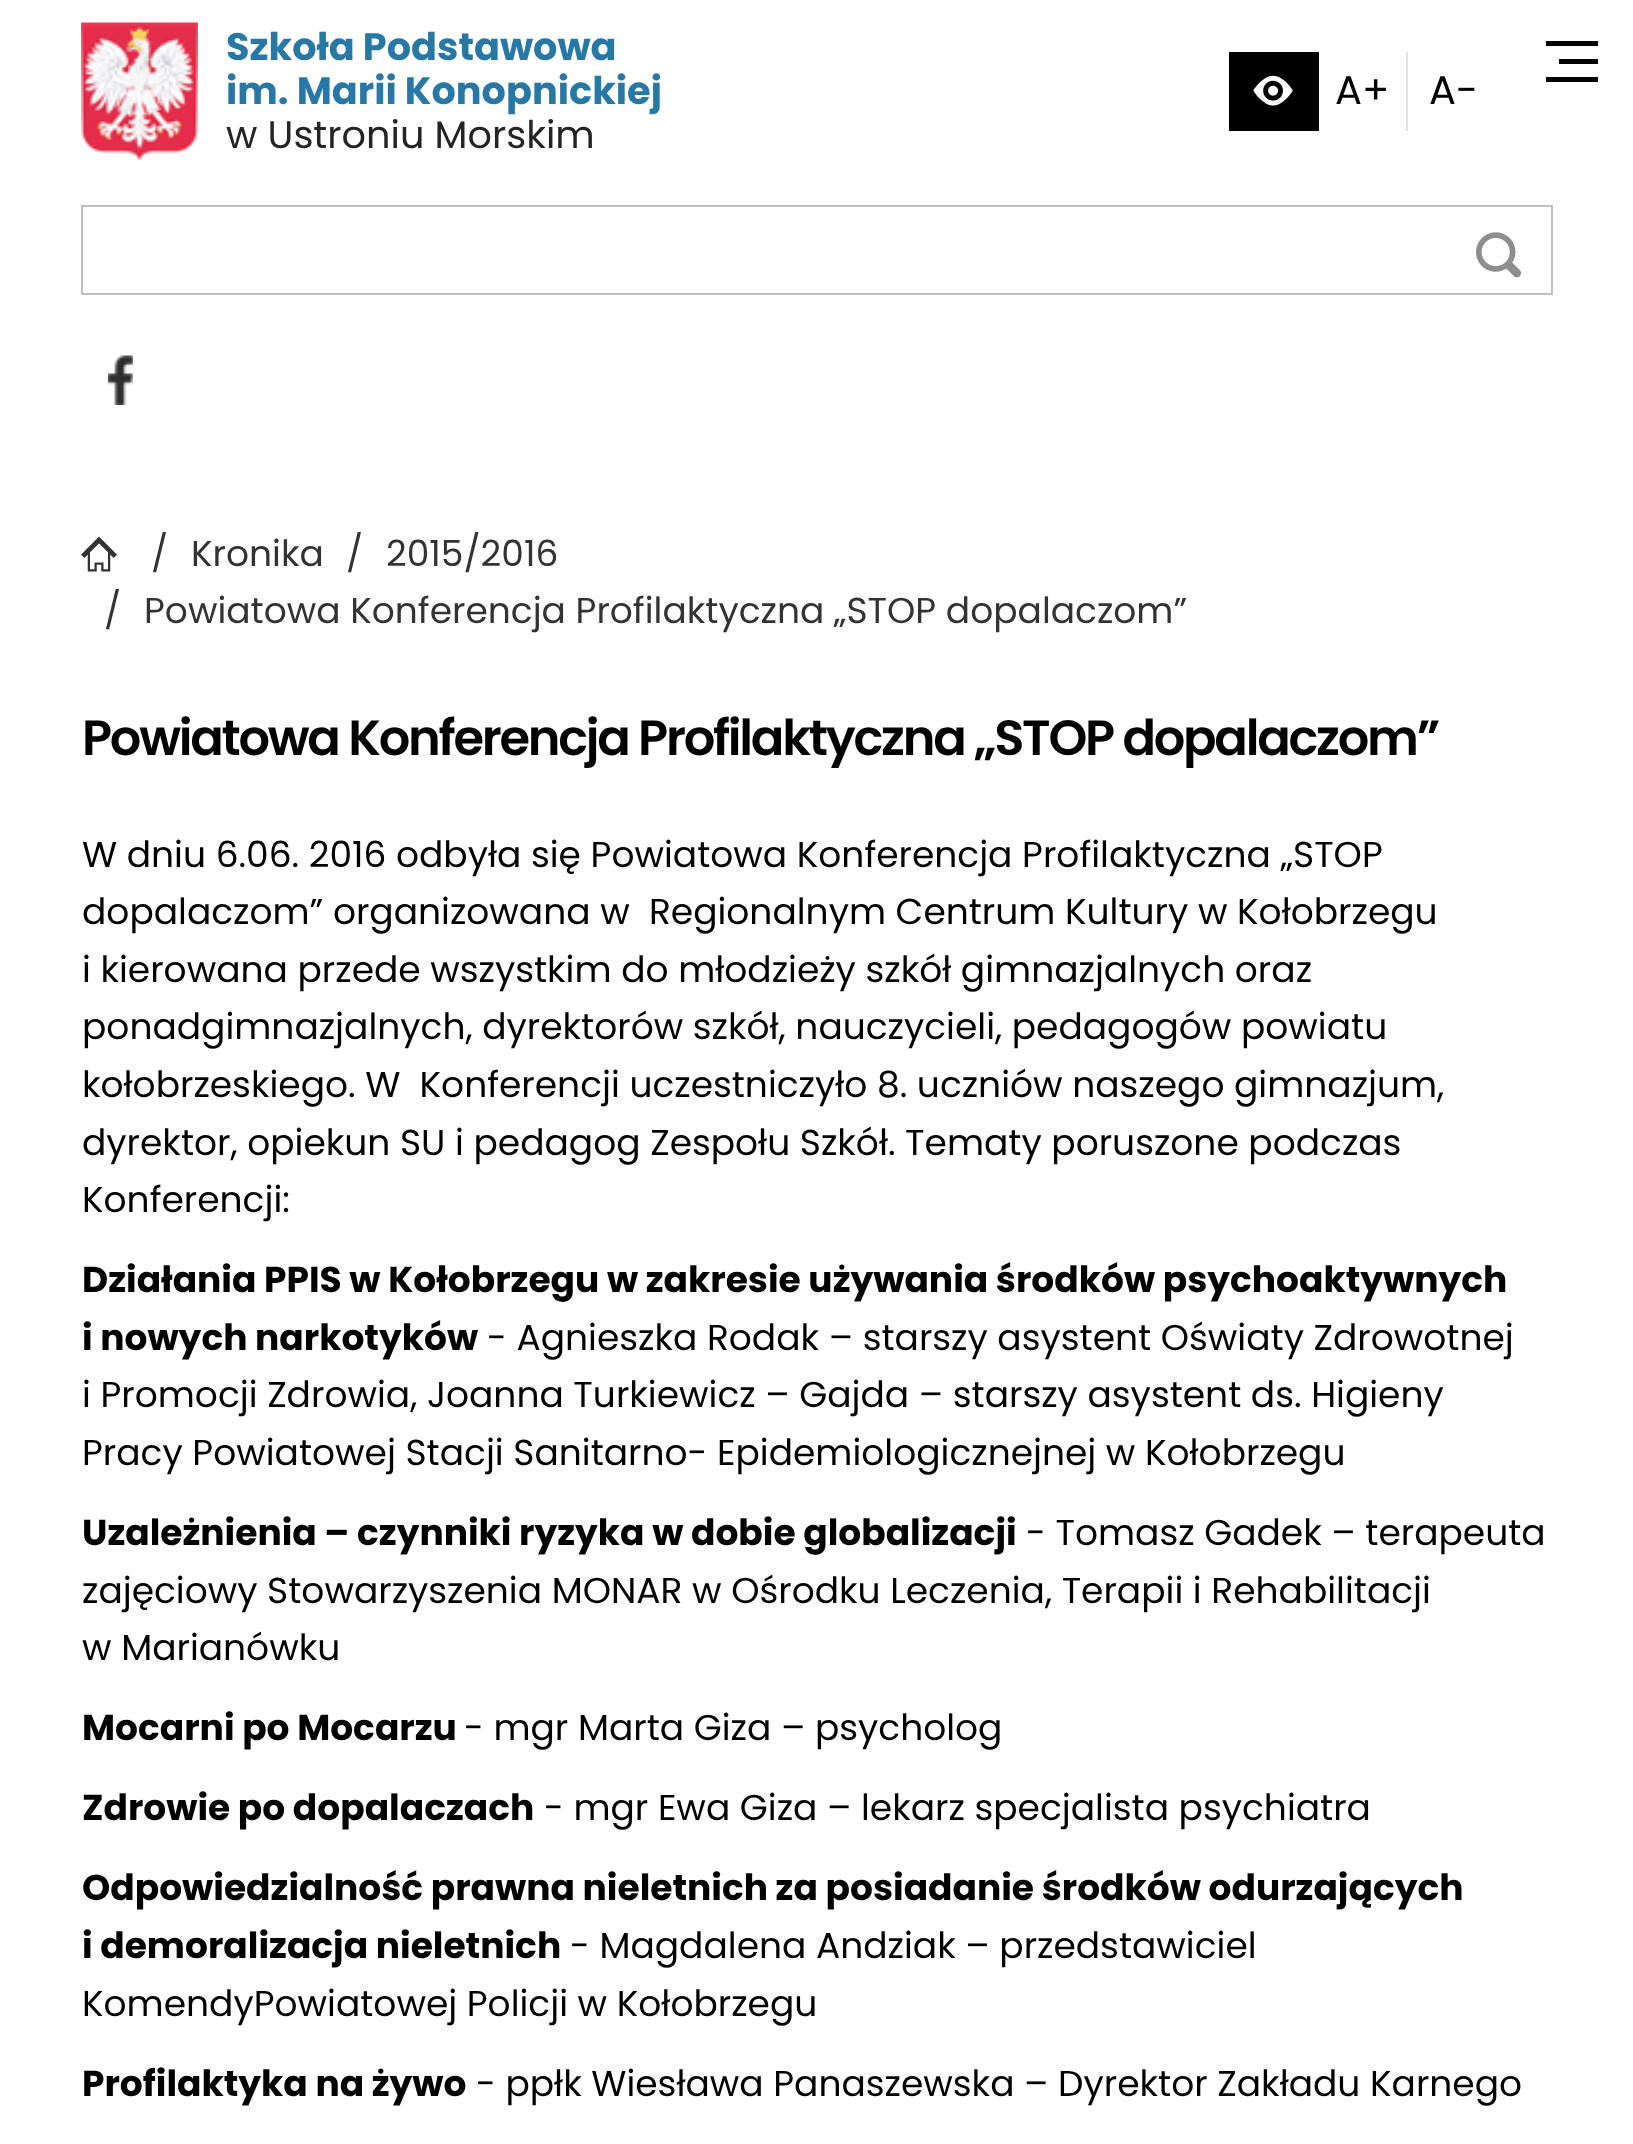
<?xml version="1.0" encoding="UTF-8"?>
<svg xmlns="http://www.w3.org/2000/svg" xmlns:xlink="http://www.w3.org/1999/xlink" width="1633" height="2144">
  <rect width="100%" height="100%" fill="#ffffff" />
  <image x="81" y="22" width="117" height="138" xlink:href="image1.png" />
  <rect x="1229" y="52" width="90" height="79" fill="#000000" />
  <image x="1253" y="75" width="40" height="31" xlink:href="image2.png" />
  <rect x="1406" y="52" width="2" height="79" fill="#e2e2e2" />
  <rect x="82" y="206" width="1470" height="88" fill="none" stroke="#bfbfbf" stroke-width="2" />
  <image x="1476" y="232" width="45" height="46" xlink:href="image3.png" />
  <image x="108" y="355" width="25" height="50" xlink:href="image4.png" />
  <rect x="1546" y="41" width="52" height="5" fill="#000000" />
  <rect x="1559" y="59" width="39" height="5" fill="#000000" />
  <rect x="1546" y="77" width="52" height="5" fill="#000000" />
  <image x="81" y="536" width="36" height="36" xlink:href="image5.png" />
  <text x="226" y="60" style="font-family: Poppins; font-size: 38.25px; font-weight: bold; fill: #2878a6">Szkoła Podstawowa</text>
  <text x="226" y="104" style="font-family: Poppins; font-size: 38.25px; font-weight: bold; fill: #2878a6">im. Marii Konopnickiej</text>
  <text x="226" y="148" style="font-family: Poppins; font-size: 38.25px; fill: #242424">w Ustroniu Morskim</text>
  <text x="1335" y="104" style="font-family: Poppins; font-size: 40px; fill: #000000">A+</text>
  <text x="1429" y="104" style="font-family: Poppins; font-size: 40px; fill: #000000">A-</text>
  <text x="151" y="566" style="font-family: Poppins; font-size: 36px; fill: #333333">/</text>
  <text x="191" y="566" style="font-family: Poppins; font-size: 36px; fill: #333333">Kronika</text>
  <text x="346" y="566" style="font-family: Poppins; font-size: 36px; fill: #333333">/</text>
  <text x="386" y="566" style="font-family: Poppins; font-size: 36px; fill: #333333">2015/2016</text>
  <text x="104" y="623" style="font-family: Poppins; font-size: 36px; fill: #333333">/</text>
  <text x="144" y="623" style="font-family: Poppins; font-size: 36px; fill: #333333">Powiatowa Konferencja Profilaktyczna „STOP dopalaczom”</text>
  <text x="82" y="755" style="font-family: Poppins; font-size: 49.5px; font-weight: 600; letter-spacing: -2.25px; fill: #000000">Powiatowa Konferencja Profilaktyczna „STOP dopalaczom”</text>
  <text x="82" y="867" style="font-family: Poppins; font-size: 36px; fill: #000000">W dniu 6.06. 2016 odbyła się Powiatowa Konferencja Profilaktyczna „STOP</text>
  <text x="82" y="924" style="font-family: Poppins; font-size: 36px; fill: #000000" xml:space="preserve">dopalaczom” organizowana w  Regionalnym Centrum Kultury w Kołobrzegu</text>
  <text x="82" y="982" style="font-family: Poppins; font-size: 36px; fill: #000000">i kierowana przede wszystkim do młodzieży szkół gimnazjalnych oraz</text>
  <text x="82" y="1039" style="font-family: Poppins; font-size: 36px; fill: #000000">ponadgimnazjalnych, dyrektorów szkół, nauczycieli, pedagogów powiatu</text>
  <text x="82" y="1097" style="font-family: Poppins; font-size: 36px; fill: #000000" xml:space="preserve">kołobrzeskiego. W  Konferencji uczestniczyło 8. uczniów naszego gimnazjum,</text>
  <text x="82" y="1155" style="font-family: Poppins; font-size: 36px; fill: #000000">dyrektor, opiekun SU i pedagog Zespołu Szkół. Tematy poruszone podczas</text>
  <text x="82" y="1212" style="font-family: Poppins; font-size: 36px; fill: #000000">Konferencji:</text>
  <text x="82" y="1292" style="font-family: Poppins; font-size: 36px; font-weight: bold; fill: #000000">Działania PPIS w Kołobrzegu w zakresie używania środków psychoaktywnych</text>
  <text x="82" y="1350" style="font-family: Poppins; font-size: 36px; font-weight: bold; fill: #000000">i nowych narkotyków</text>
  <text x="487" y="1350" style="font-family: Poppins; font-size: 36px; fill: #000000">- Agnieszka Rodak – starszy asystent Oświaty Zdrowotnej</text>
  <text x="82" y="1407" style="font-family: Poppins; font-size: 36px; fill: #000000">i Promocji Zdrowia, Joanna Turkiewicz – Gajda – starszy asystent ds. Higieny</text>
  <text x="82" y="1465" style="font-family: Poppins; font-size: 36px; fill: #000000">Pracy Powiatowej Stacji Sanitarno- Epidemiologicznejnej w Kołobrzegu</text>
  <text x="82" y="1545" style="font-family: Poppins; font-size: 36px; font-weight: bold; fill: #000000">Uzależnienia – czynniki ryzyka w dobie globalizacji</text>
  <text x="1026" y="1545" style="font-family: Poppins; font-size: 36px; fill: #000000">- Tomasz Gadek – terapeuta</text>
  <text x="82" y="1603" style="font-family: Poppins; font-size: 36px; fill: #000000">zajęciowy Stowarzyszenia MONAR w Ośrodku Leczenia, Terapii i Rehabilitacji</text>
  <text x="82" y="1660" style="font-family: Poppins; font-size: 36px; fill: #000000">w Marianówku</text>
  <text x="82" y="1740" style="font-family: Poppins; font-size: 36px; font-weight: bold; fill: #000000">Mocarni po Mocarzu</text>
  <text x="464" y="1740" style="font-family: Poppins; font-size: 36px; fill: #000000">- mgr Marta Giza – psycholog</text>
  <text x="82" y="1820" style="font-family: Poppins; font-size: 36px; font-weight: bold; fill: #000000">Zdrowie po dopalaczach</text>
  <text x="544" y="1820" style="font-family: Poppins; font-size: 36px; fill: #000000">- mgr Ewa Giza – lekarz specjalista psychiatra</text>
  <text x="82" y="1900" style="font-family: Poppins; font-size: 36px; font-weight: bold; fill: #000000">Odpowiedzialność prawna nieletnich za posiadanie środków odurzających</text>
  <text x="82" y="1958" style="font-family: Poppins; font-size: 36px; font-weight: bold; fill: #000000">i demoralizacja nieletnich</text>
  <text x="570" y="1958" style="font-family: Poppins; font-size: 36px; fill: #000000">- Magdalena Andziak – przedstawiciel</text>
  <text x="82" y="2016" style="font-family: Poppins; font-size: 36px; fill: #000000">KomendyPowiatowej Policji w Kołobrzegu</text>
  <text x="82" y="2096" style="font-family: Poppins; font-size: 36px; font-weight: bold; fill: #000000">Profilaktyka na żywo</text>
  <text x="476" y="2096" style="font-family: Poppins; font-size: 36px; fill: #000000">- ppłk Wiesława Panaszewska – Dyrektor Zakładu Karnego</text>
</svg>
